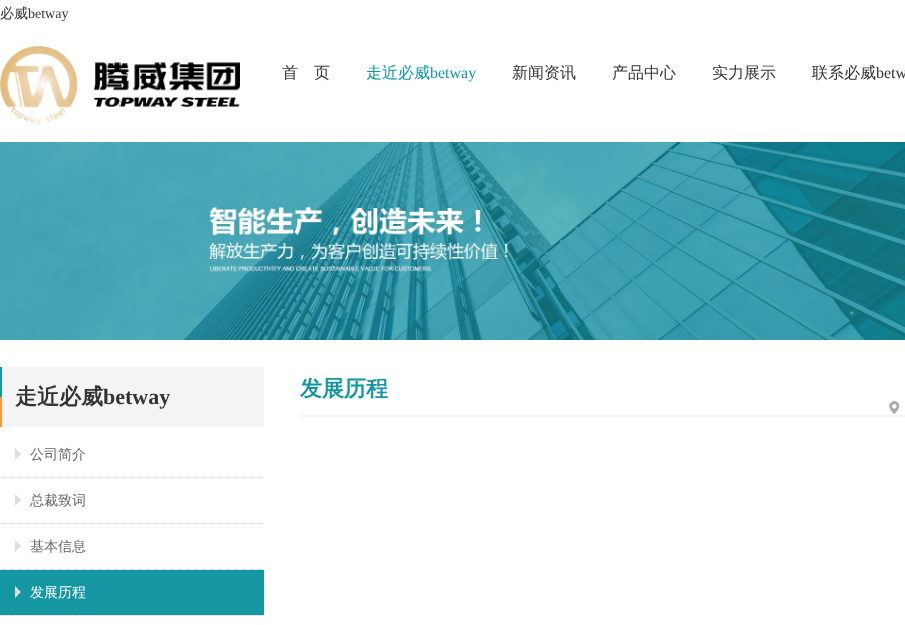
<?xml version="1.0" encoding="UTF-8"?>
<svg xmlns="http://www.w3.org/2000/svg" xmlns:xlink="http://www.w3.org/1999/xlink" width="905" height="625">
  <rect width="100%" height="100%" fill="#ffffff" />
  <image x="0" y="46" width="240" height="78" xlink:href="image1.png" />
  <image x="0" y="142" width="905" height="198" xlink:href="image2.png" />
  <rect x="2" y="367" width="262" height="60" fill="#f4f4f4" />
  <rect y="367" width="2" height="30" fill="#1497a2" />
  <rect y="397" width="2" height="30" fill="#ff9933" />
  <path d="M 0 477.5 h 264" fill="none" stroke="#dddddd" stroke-dasharray="1 1" />
  <path d="M 15 460 v -12 l 6 6 z" fill="#dddddd" />
  <path d="M 0 523.5 h 264" fill="none" stroke="#dddddd" stroke-dasharray="1 1" />
  <path d="M 15 506 v -12 l 6 6 z" fill="#dddddd" />
  <path d="M 0 569.5 h 264" fill="none" stroke="#dddddd" stroke-dasharray="1 1" />
  <path d="M 15 552 v -12 l 6 6 z" fill="#dddddd" />
  <path d="M 0 615.5 h 264" fill="none" stroke="#dddddd" stroke-dasharray="1 1" />
  <rect y="570" width="264" height="45" fill="#1497a2" />
  <path d="M 15 598 v -12 l 6 6 z" fill="#dddddd" />
  <rect x="300" y="415" width="605" height="2" fill="#f4f4f4" />
  <image x="889" y="401" width="11" height="13" xlink:href="image3.png" />
  <text x="0" y="18" style="font-family: WenQuanYi Zen Hei; font-size: 14px; font-weight: 500; fill: #333333">必威</text>
  <text x="28" y="18" style="font-family: Liberation Serif; font-size: 14px; fill: #333333">betway</text>
  <text x="282" y="78" style="font-family: WenQuanYi Zen Hei; font-size: 16px; font-weight: 500; fill: #333333">首　页</text>
  <text x="366" y="78" style="font-family: WenQuanYi Zen Hei; font-size: 16px; font-weight: 500; fill: #1197a2">走近必威</text>
  <text x="430" y="78" style="font-family: Liberation Serif; font-size: 16px; fill: #1197a2">betway</text>
  <text x="512" y="78" style="font-family: WenQuanYi Zen Hei; font-size: 16px; font-weight: 500; fill: #333333">新闻资讯</text>
  <text x="612" y="78" style="font-family: WenQuanYi Zen Hei; font-size: 16px; font-weight: 500; fill: #333333">产品中心</text>
  <text x="712" y="78" style="font-family: WenQuanYi Zen Hei; font-size: 16px; font-weight: 500; fill: #333333">实力展示</text>
  <text x="812" y="78" style="font-family: WenQuanYi Zen Hei; font-size: 16px; font-weight: 500; fill: #333333">联系必威</text>
  <text x="876" y="78" style="font-family: Liberation Serif; font-size: 16px; fill: #333333">betw</text>
  <text x="15" y="404" style="font-family: WenQuanYi Zen Hei; font-size: 22px; font-weight: bold; fill: #333333">走近必威</text>
  <text x="103" y="404" style="font-family: Liberation Serif; font-size: 22px; font-weight: bold; fill: #333333">betway</text>
  <text x="30" y="459" style="font-family: WenQuanYi Zen Hei; font-size: 14px; font-weight: 500; fill: #666666">公司简介</text>
  <text x="30" y="505" style="font-family: WenQuanYi Zen Hei; font-size: 14px; font-weight: 500; fill: #666666">总裁致词</text>
  <text x="30" y="551" style="font-family: WenQuanYi Zen Hei; font-size: 14px; font-weight: 500; fill: #666666">基本信息</text>
  <text x="30" y="597" style="font-family: WenQuanYi Zen Hei; font-size: 14px; font-weight: 500; fill: #ffffff">发展历程</text>
  <text x="300" y="396" style="font-family: WenQuanYi Zen Hei; font-size: 22px; font-weight: bold; fill: #1197a2">发展历程</text>
</svg>
